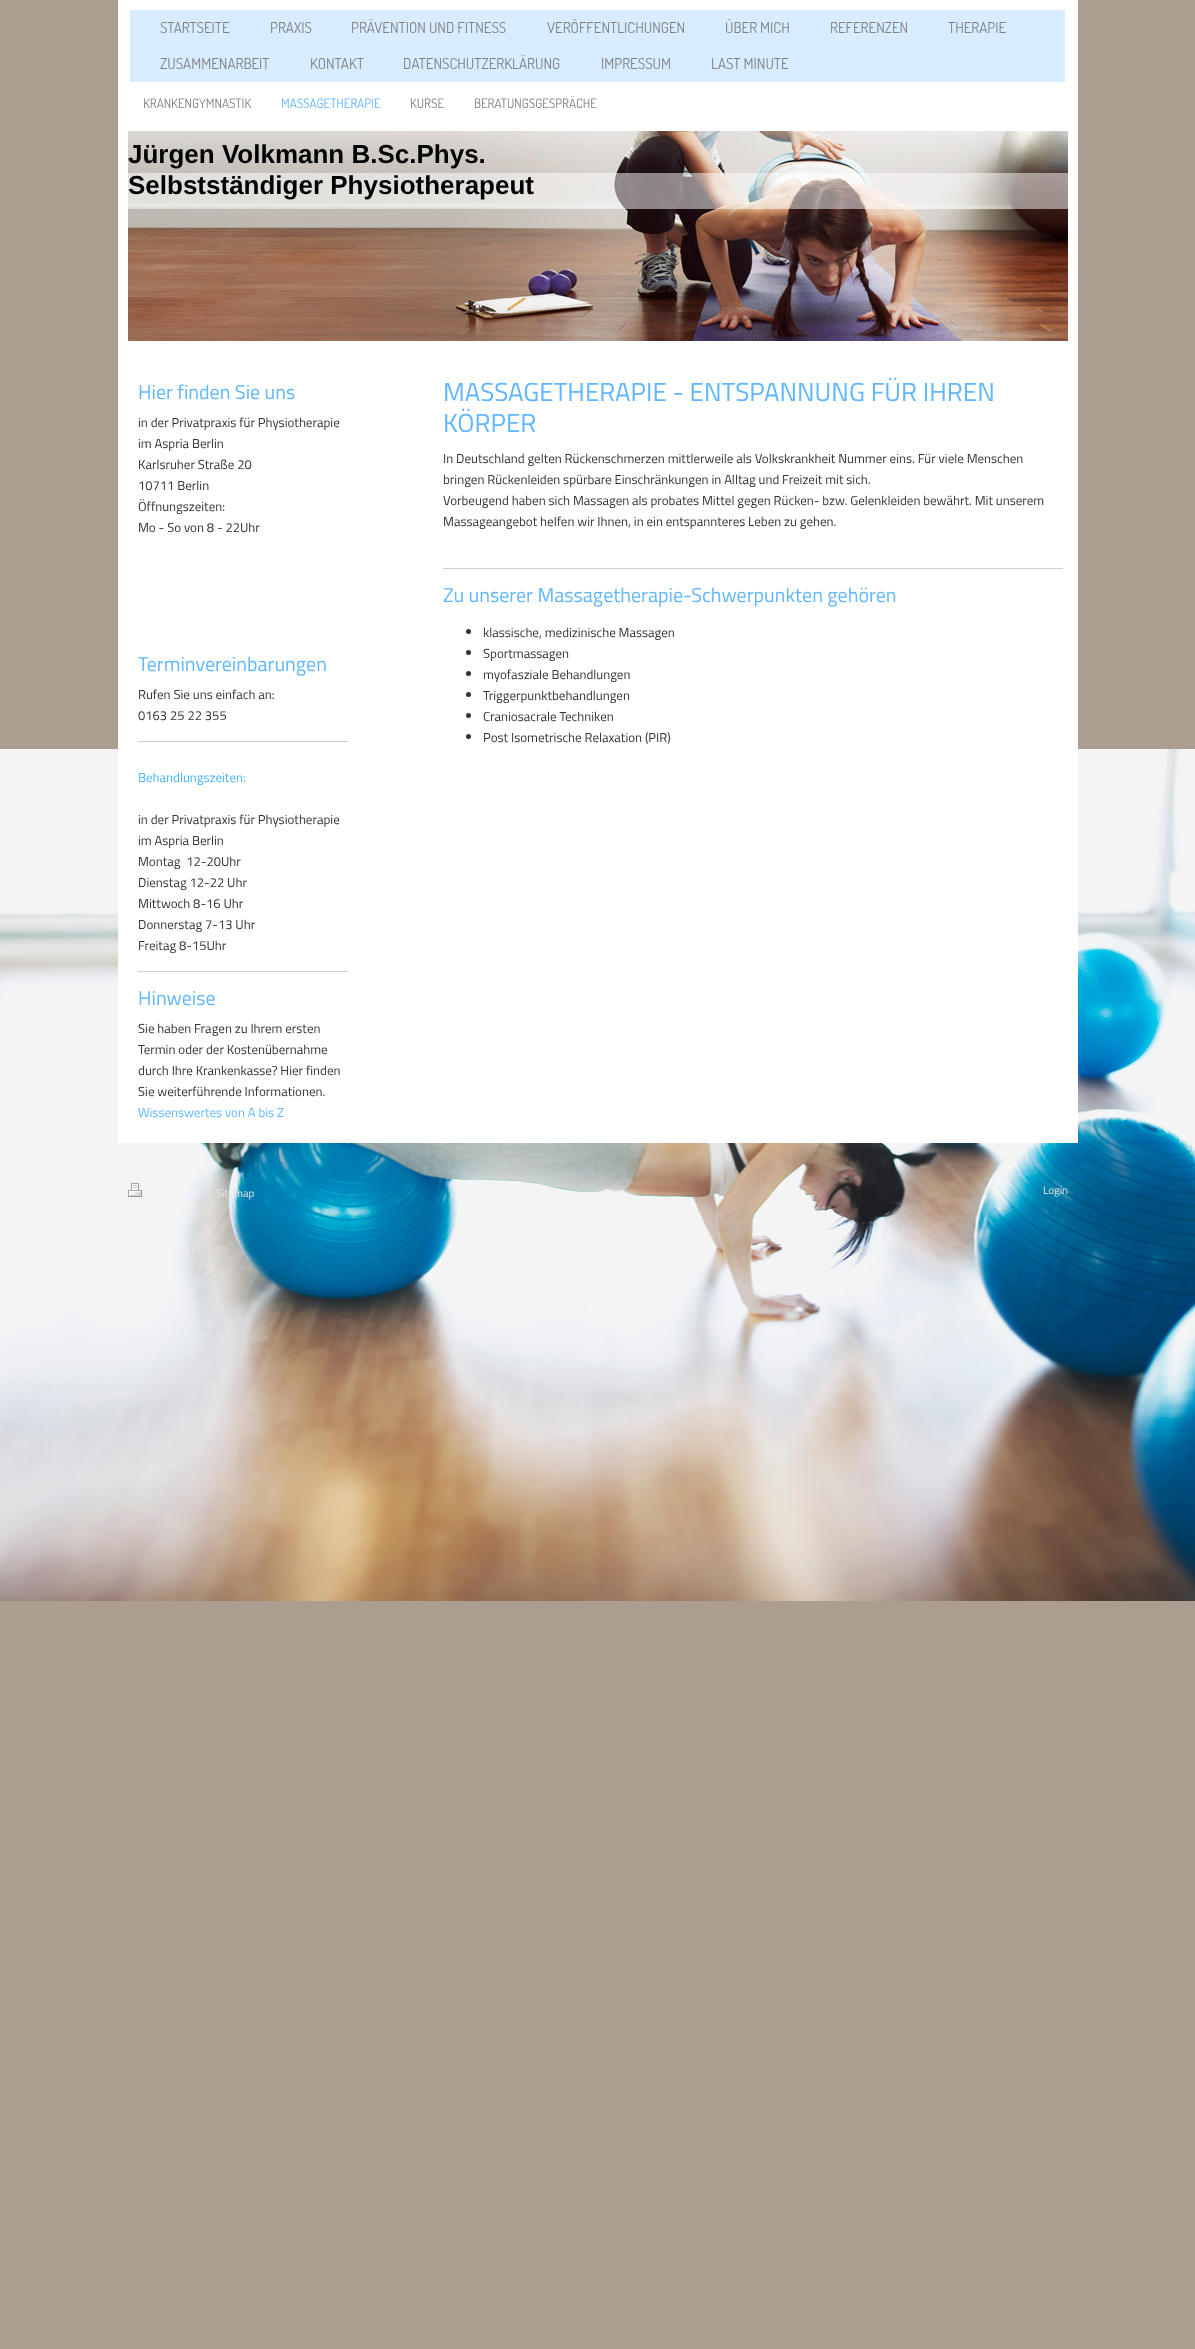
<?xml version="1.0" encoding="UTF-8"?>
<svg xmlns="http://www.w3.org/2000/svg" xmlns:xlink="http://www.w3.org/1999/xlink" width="1195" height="2349">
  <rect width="100%" height="100%" fill="#ab9e90" />
  <image x="0" y="749" width="1195" height="852" xlink:href="image1.png" />
  <rect x="118" width="960" height="1143" fill="#ffffff" />
  <rect x="130" y="10" width="935" height="72" fill="#d7edff" />
  <image x="128" y="131" width="940" height="210" xlink:href="image2.png" />
  <rect x="128" y="173" width="940" height="36" fill="#ffffff" fill-opacity="0.5" />
  <rect x="138" y="741" width="210" height="1" fill="#cccccc" />
  <rect x="138" y="971" width="210" height="1" fill="#cccccc" />
  <rect x="443" y="568" width="620" height="1" fill="#cccccc" />
  <circle cx="468.5" cy="631.5" r="2.5" fill="#333333" />
  <circle cx="468.5" cy="652.5" r="2.5" fill="#333333" />
  <circle cx="468.5" cy="673.5" r="2.5" fill="#333333" />
  <circle cx="468.5" cy="694.5" r="2.5" fill="#333333" />
  <circle cx="468.5" cy="715.5" r="2.5" fill="#333333" />
  <circle cx="468.5" cy="736.5" r="2.5" fill="#333333" />
  <image x="128" y="1183" width="14" height="14" xlink:href="image3.png" />
  <text x="160" y="33" style="font-family: Dosis; font-size: 15px; fill: #808080">STARTSEITE</text>
  <text x="270" y="33" style="font-family: Dosis; font-size: 15px; fill: #808080">PRAXIS</text>
  <text x="351" y="33" style="font-family: Dosis; font-size: 15px; fill: #808080">PRÄVENTION UND FITNESS</text>
  <text x="547" y="33" style="font-family: Dosis; font-size: 15px; fill: #808080">VERÖFFENTLICHUNGEN</text>
  <text x="725" y="33" style="font-family: Dosis; font-size: 15px; fill: #808080">ÜBER MICH</text>
  <text x="830" y="33" style="font-family: Dosis; font-size: 15px; fill: #808080">REFERENZEN</text>
  <text x="948" y="33" style="font-family: Dosis; font-size: 15px; fill: #808080">THERAPIE</text>
  <text x="160" y="69" style="font-family: Dosis; font-size: 15px; fill: #808080">ZUSAMMENARBEIT</text>
  <text x="310" y="69" style="font-family: Dosis; font-size: 15px; fill: #808080">KONTAKT</text>
  <text x="403" y="69" style="font-family: Dosis; font-size: 15px; fill: #808080">DATENSCHUTZERKLÄRUNG</text>
  <text x="601" y="69" style="font-family: Dosis; font-size: 15px; fill: #808080">IMPRESSUM</text>
  <text x="711" y="69" style="font-family: Dosis; font-size: 15px; fill: #808080">LAST MINUTE</text>
  <text x="143" y="108" style="font-family: Dosis; font-size: 13px; fill: #808080">KRANKENGYMNASTIK</text>
  <text x="281" y="108" style="font-family: Dosis; font-size: 13px; fill: #60b6ff">MASSAGETHERAPIE</text>
  <text x="410" y="108" style="font-family: Dosis; font-size: 13px; fill: #808080">KURSE</text>
  <text x="474" y="108" style="font-family: Dosis; font-size: 13px; fill: #808080">BERATUNGSGESPRÄCHE</text>
  <text x="128" y="163" style="font-family: Liberation Sans; font-size: 26px; font-weight: bold; fill: #000000">Jürgen Volkmann B.Sc.Phys.</text>
  <text x="128" y="194" style="font-family: Liberation Sans; font-size: 26px; font-weight: bold; fill: #000000">Selbstständiger Physiotherapeut</text>
  <text x="138" y="399" style="font-family: Titillium Web; font-size: 20px; fill: #60b6ff">Hier finden Sie uns</text>
  <text x="138" y="427" style="font-family: Titillium Web; font-size: 13px; fill: #333333">in der Privatpraxis für Physiotherapie</text>
  <text x="138" y="448" style="font-family: Titillium Web; font-size: 13px; fill: #333333">im Aspria Berlin</text>
  <text x="138" y="469" style="font-family: Titillium Web; font-size: 13px; fill: #333333">Karlsruher Straße 20</text>
  <text x="138" y="490" style="font-family: Titillium Web; font-size: 13px; fill: #333333">10711 Berlin</text>
  <text x="138" y="511" style="font-family: Titillium Web; font-size: 13px; fill: #333333">Öffnungszeiten:</text>
  <text x="138" y="532" style="font-family: Titillium Web; font-size: 13px; fill: #333333">Mo - So von 8 - 22Uhr</text>
  <text x="138" y="671" style="font-family: Titillium Web; font-size: 20px; fill: #60b6ff">Terminvereinbarungen</text>
  <text x="138" y="699" style="font-family: Titillium Web; font-size: 13px; fill: #333333">Rufen Sie uns einfach an:</text>
  <text x="138" y="720" style="font-family: Titillium Web; font-size: 13px; fill: #333333">0163 25 22 355</text>
  <text x="138" y="782" style="font-family: Titillium Web; font-size: 13px; fill: #48b2fd">Behandlungszeiten:</text>
  <text x="138" y="824" style="font-family: Titillium Web; font-size: 13px; fill: #333333">in der Privatpraxis für Physiotherapie</text>
  <text x="138" y="845" style="font-family: Titillium Web; font-size: 13px; fill: #333333">im Aspria Berlin</text>
  <text x="138" y="866" style="font-family: Titillium Web; font-size: 13px; fill: #333333" xml:space="preserve">Montag  12-20Uhr</text>
  <text x="138" y="887" style="font-family: Titillium Web; font-size: 13px; fill: #333333">Dienstag 12-22 Uhr</text>
  <text x="138" y="908" style="font-family: Titillium Web; font-size: 13px; fill: #333333">Mittwoch 8-16 Uhr</text>
  <text x="138" y="929" style="font-family: Titillium Web; font-size: 13px; fill: #333333">Donnerstag 7-13 Uhr</text>
  <text x="138" y="950" style="font-family: Titillium Web; font-size: 13px; fill: #333333">Freitag 8-15Uhr</text>
  <text x="138" y="1005" style="font-family: Titillium Web; font-size: 20px; fill: #60b6ff">Hinweise</text>
  <text x="138" y="1033" style="font-family: Titillium Web; font-size: 13px; fill: #333333">Sie haben Fragen zu Ihrem ersten</text>
  <text x="138" y="1054" style="font-family: Titillium Web; font-size: 13px; fill: #333333">Termin oder der Kostenübernahme</text>
  <text x="138" y="1075" style="font-family: Titillium Web; font-size: 13px; fill: #333333">durch Ihre Krankenkasse? Hier finden</text>
  <text x="138" y="1096" style="font-family: Titillium Web; font-size: 13px; fill: #333333">Sie weiterführende Informationen.</text>
  <text x="138" y="1117" style="font-family: Titillium Web; font-size: 13px; fill: #60b6ff">Wissenswertes von A bis Z</text>
  <text x="443" y="401" style="font-family: Titillium Web; font-size: 26px; fill: #60b6ff">MASSAGETHERAPIE - ENTSPANNUNG FÜR IHREN</text>
  <text x="443" y="432" style="font-family: Titillium Web; font-size: 26px; fill: #60b6ff">KÖRPER</text>
  <text x="443" y="463" style="font-family: Titillium Web; font-size: 13px; fill: #333333">In Deutschland gelten Rückenschmerzen mittlerweile als Volkskrankheit Nummer eins. Für viele Menschen</text>
  <text x="443" y="484" style="font-family: Titillium Web; font-size: 13px; fill: #333333">bringen Rückenleiden spürbare Einschränkungen in Alltag und Freizeit mit sich.</text>
  <text x="443" y="505" style="font-family: Titillium Web; font-size: 13px; fill: #333333">Vorbeugend haben sich Massagen als probates Mittel gegen Rücken- bzw. Gelenkleiden bewährt. Mit unserem</text>
  <text x="443" y="526" style="font-family: Titillium Web; font-size: 13px; fill: #333333">Massageangebot helfen wir Ihnen, in ein entspannteres Leben zu gehen.</text>
  <text x="443" y="602" style="font-family: Titillium Web; font-size: 20px; fill: #60b6ff">Zu unserer Massagetherapie-Schwerpunkten gehören</text>
  <text x="483" y="637" style="font-family: Titillium Web; font-size: 13px; fill: #333333">klassische, medizinische Massagen</text>
  <text x="483" y="658" style="font-family: Titillium Web; font-size: 13px; fill: #333333">Sportmassagen</text>
  <text x="483" y="679" style="font-family: Titillium Web; font-size: 13px; fill: #333333">myofasziale Behandlungen</text>
  <text x="483" y="700" style="font-family: Titillium Web; font-size: 13px; fill: #333333">Triggerpunktbehandlungen</text>
  <text x="483" y="721" style="font-family: Titillium Web; font-size: 13px; fill: #333333">Craniosacrale Techniken</text>
  <text x="483" y="742" style="font-family: Titillium Web; font-size: 13px; fill: #333333">Post Isometrische Relaxation (PIR)</text>
  <text x="216" y="1197" style="font-family: Titillium Web; font-size: 11px; fill: #eae7e3">Sitemap</text>
  <text x="1043" y="1194" style="font-family: Titillium Web; font-size: 11px; fill: #eae7e3">Login</text>
</svg>
